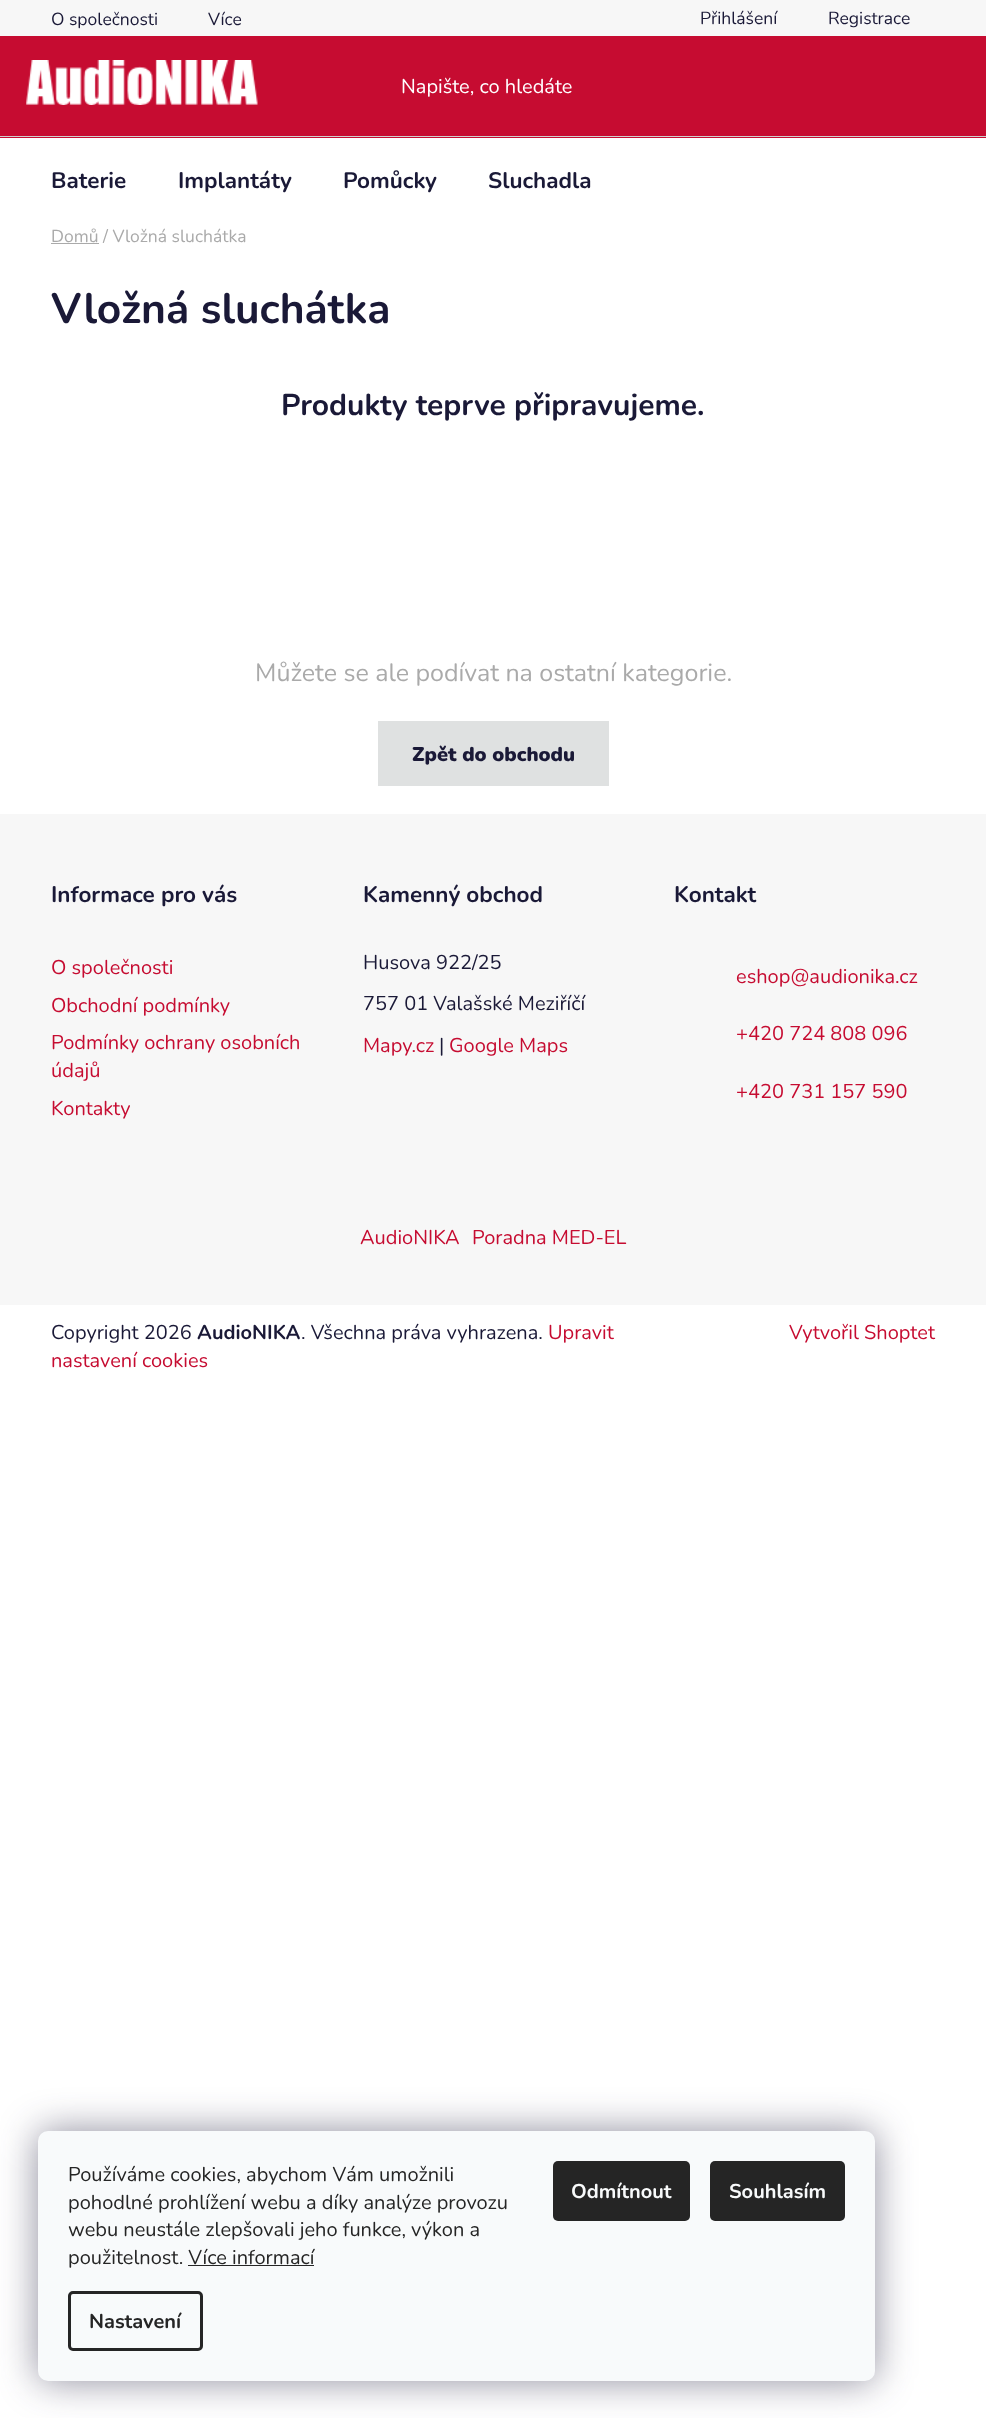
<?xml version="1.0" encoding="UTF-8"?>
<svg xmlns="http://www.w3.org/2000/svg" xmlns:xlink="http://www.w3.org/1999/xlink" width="1005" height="2418">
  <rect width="100%" height="100%" fill="#ffffff" />
  <rect width="986" height="36" fill="#f7f7f7" />
  <rect y="36" width="986" height="102" fill="#c60c31" />
  <image x="26" y="60" width="232" height="45" xlink:href="image1.png" />
  <rect y="136" width="986" height="1" fill="#cfcfcf" />
  <rect x="51" y="243" width="48" height="1" fill="#aaaaaa" />
  <rect x="378" y="721" width="231" height="65" fill="#dfe1e1" />
  <rect y="814" width="986" height="491" fill="#f7f7f7" />
  <rect x="38" y="2131" width="837" height="250" rx="10" fill="#1b1939" fill-opacity="0.5" filter="blur(19px)" />
  <rect x="38" y="2131" width="837" height="250" rx="10" fill="#f8fafb" />
  <rect x="188" y="2265" width="126" height="1" fill="#252525" />
  <rect x="69.5" y="2292.5" width="132" height="57" rx="3.5" fill="none" stroke="#252525" stroke-width="3" />
  <rect x="553" y="2161" width="137" height="60" rx="5" fill="#252525" />
  <rect x="710" y="2161" width="135" height="60" rx="5" fill="#252525" />
  <text x="51" y="25" style="font-family: Nunito; font-size: 17.5px; fill: #1a1937">O společnosti</text>
  <text x="208" y="25" style="font-family: Nunito; font-size: 17.5px; fill: #1a1937">Více</text>
  <text x="700" y="24" style="font-family: Nunito; font-size: 17.5px; fill: #1a1937">Přihlášení</text>
  <text x="828" y="24" style="font-family: Nunito; font-size: 17.5px; fill: #1a1937">Registrace</text>
  <text x="401" y="93" style="font-family: Nunito; font-size: 20px; fill: #ffffff">Napište, co hledáte</text>
  <text x="51" y="188" style="font-family: Nunito; font-size: 22.5px; font-weight: bold; fill: #1a1937">Baterie</text>
  <text x="178" y="188" style="font-family: Nunito; font-size: 22.5px; font-weight: bold; fill: #1a1937">Implantáty</text>
  <text x="343" y="188" style="font-family: Nunito; font-size: 22.5px; font-weight: bold; fill: #1a1937">Pomůcky</text>
  <text x="488" y="188" style="font-family: Nunito; font-size: 22.5px; font-weight: bold; fill: #1a1937">Sluchadla</text>
  <text x="51" y="242" style="font-family: Nunito; font-size: 17.5px; fill: #aaaaaa">Domů / Vložná sluchátka</text>
  <text x="51" y="323" style="font-family: Nunito; font-size: 42.5px; font-weight: bold; fill: #1a1937">Vložná sluchátka</text>
  <text x="281" y="415" style="font-family: Nunito; font-size: 30px; font-weight: bold; fill: #1a1937">Produkty teprve připravujeme.</text>
  <text x="255" y="681" style="font-family: Nunito; font-size: 25px; fill: #aaaaaa">Můžete se ale podívat na ostatní kategorie.</text>
  <text x="412" y="761" style="font-family: Nunito; font-size: 20px; font-weight: 900; fill: #1a1937">Zpět do obchodu</text>
  <text x="51" y="902" style="font-family: Nunito; font-size: 22.5px; font-weight: bold; fill: #1a1937">Informace pro vás</text>
  <text x="51" y="974" style="font-family: Nunito; font-size: 20px; fill: #c60c31">O společnosti</text>
  <text x="51" y="1012" style="font-family: Nunito; font-size: 20px; fill: #c60c31">Obchodní podmínky</text>
  <text x="51" y="1049" style="font-family: Nunito; font-size: 20px; fill: #c60c31">Podmínky ochrany osobních</text>
  <text x="51" y="1077" style="font-family: Nunito; font-size: 20px; fill: #c60c31">údajů</text>
  <text x="51" y="1115" style="font-family: Nunito; font-size: 20px; fill: #c60c31">Kontakty</text>
  <text x="363" y="902" style="font-family: Nunito; font-size: 22.5px; font-weight: bold; fill: #1a1937">Kamenný obchod</text>
  <text x="363" y="969" style="font-family: Nunito; font-size: 20px; fill: #1a1937">Husova 922/25</text>
  <text x="363" y="1010" style="font-family: Nunito; font-size: 20px; fill: #1a1937">757 01 Valašské Meziříčí</text>
  <text x="363" y="1052" style="font-family: Nunito; font-size: 20px; fill: #c60c31">Mapy.cz</text>
  <text x="439" y="1052" style="font-family: Nunito; font-size: 20px; fill: #1a1937">|</text>
  <text x="449" y="1052" style="font-family: Nunito; font-size: 20px; fill: #c60c31">Google Maps</text>
  <text x="674" y="902" style="font-family: Nunito; font-size: 22.5px; font-weight: bold; fill: #1a1937">Kontakt</text>
  <text x="736" y="983" style="font-family: Nunito; font-size: 20px; fill: #c60c31">eshop@audionika.cz</text>
  <text x="736" y="1040" style="font-family: Nunito; font-size: 20px; fill: #c60c31">+420 724 808 096</text>
  <text x="736" y="1098" style="font-family: Nunito; font-size: 20px; fill: #c60c31">+420 731 157 590</text>
  <text x="360" y="1244" style="font-family: Nunito; font-size: 20px; fill: #c60c31">AudioNIKA</text>
  <text x="472" y="1244" style="font-family: Nunito; font-size: 20px; fill: #c60c31">Poradna MED-EL</text>
  <text x="51" y="1339" style="font-family: Nunito; font-size: 20px; fill: #1a1937">Copyright 2026</text>
  <text x="197" y="1339" style="font-family: Nunito; font-size: 20px; font-weight: bold; fill: #1a1937">AudioNIKA</text>
  <text x="301" y="1339" style="font-family: Nunito; font-size: 20px; fill: #1a1937">. Všechna práva vyhrazena.</text>
  <text x="548" y="1339" style="font-family: Nunito; font-size: 20px; fill: #c60c31">Upravit</text>
  <text x="789" y="1339" style="font-family: Nunito; font-size: 20px; fill: #c60c31">Vytvořil Shoptet</text>
  <text x="51" y="1367" style="font-family: Nunito; font-size: 20px; fill: #c60c31">nastavení cookies</text>
  <text x="68" y="2181" style="font-family: Nunito; font-size: 20px; fill: #252525">Používáme cookies, abychom Vám umožnili</text>
  <text x="68" y="2209" style="font-family: Nunito; font-size: 20px; fill: #252525">pohodlné prohlížení webu a díky analýze provozu</text>
  <text x="68" y="2236" style="font-family: Nunito; font-size: 20px; fill: #252525">webu neustále zlepšovali jeho funkce, výkon a</text>
  <text x="68" y="2264" style="font-family: Nunito; font-size: 20px; fill: #252525">použitelnost. Více informací</text>
  <text x="89" y="2328" style="font-family: Nunito; font-size: 20px; font-weight: bold; fill: #252525">Nastavení</text>
  <text x="571" y="2198" style="font-family: Nunito; font-size: 20px; font-weight: bold; fill: #f8fafb">Odmítnout</text>
  <text x="729" y="2198" style="font-family: Nunito; font-size: 20px; font-weight: bold; fill: #f8fafb">Souhlasím</text>
</svg>
